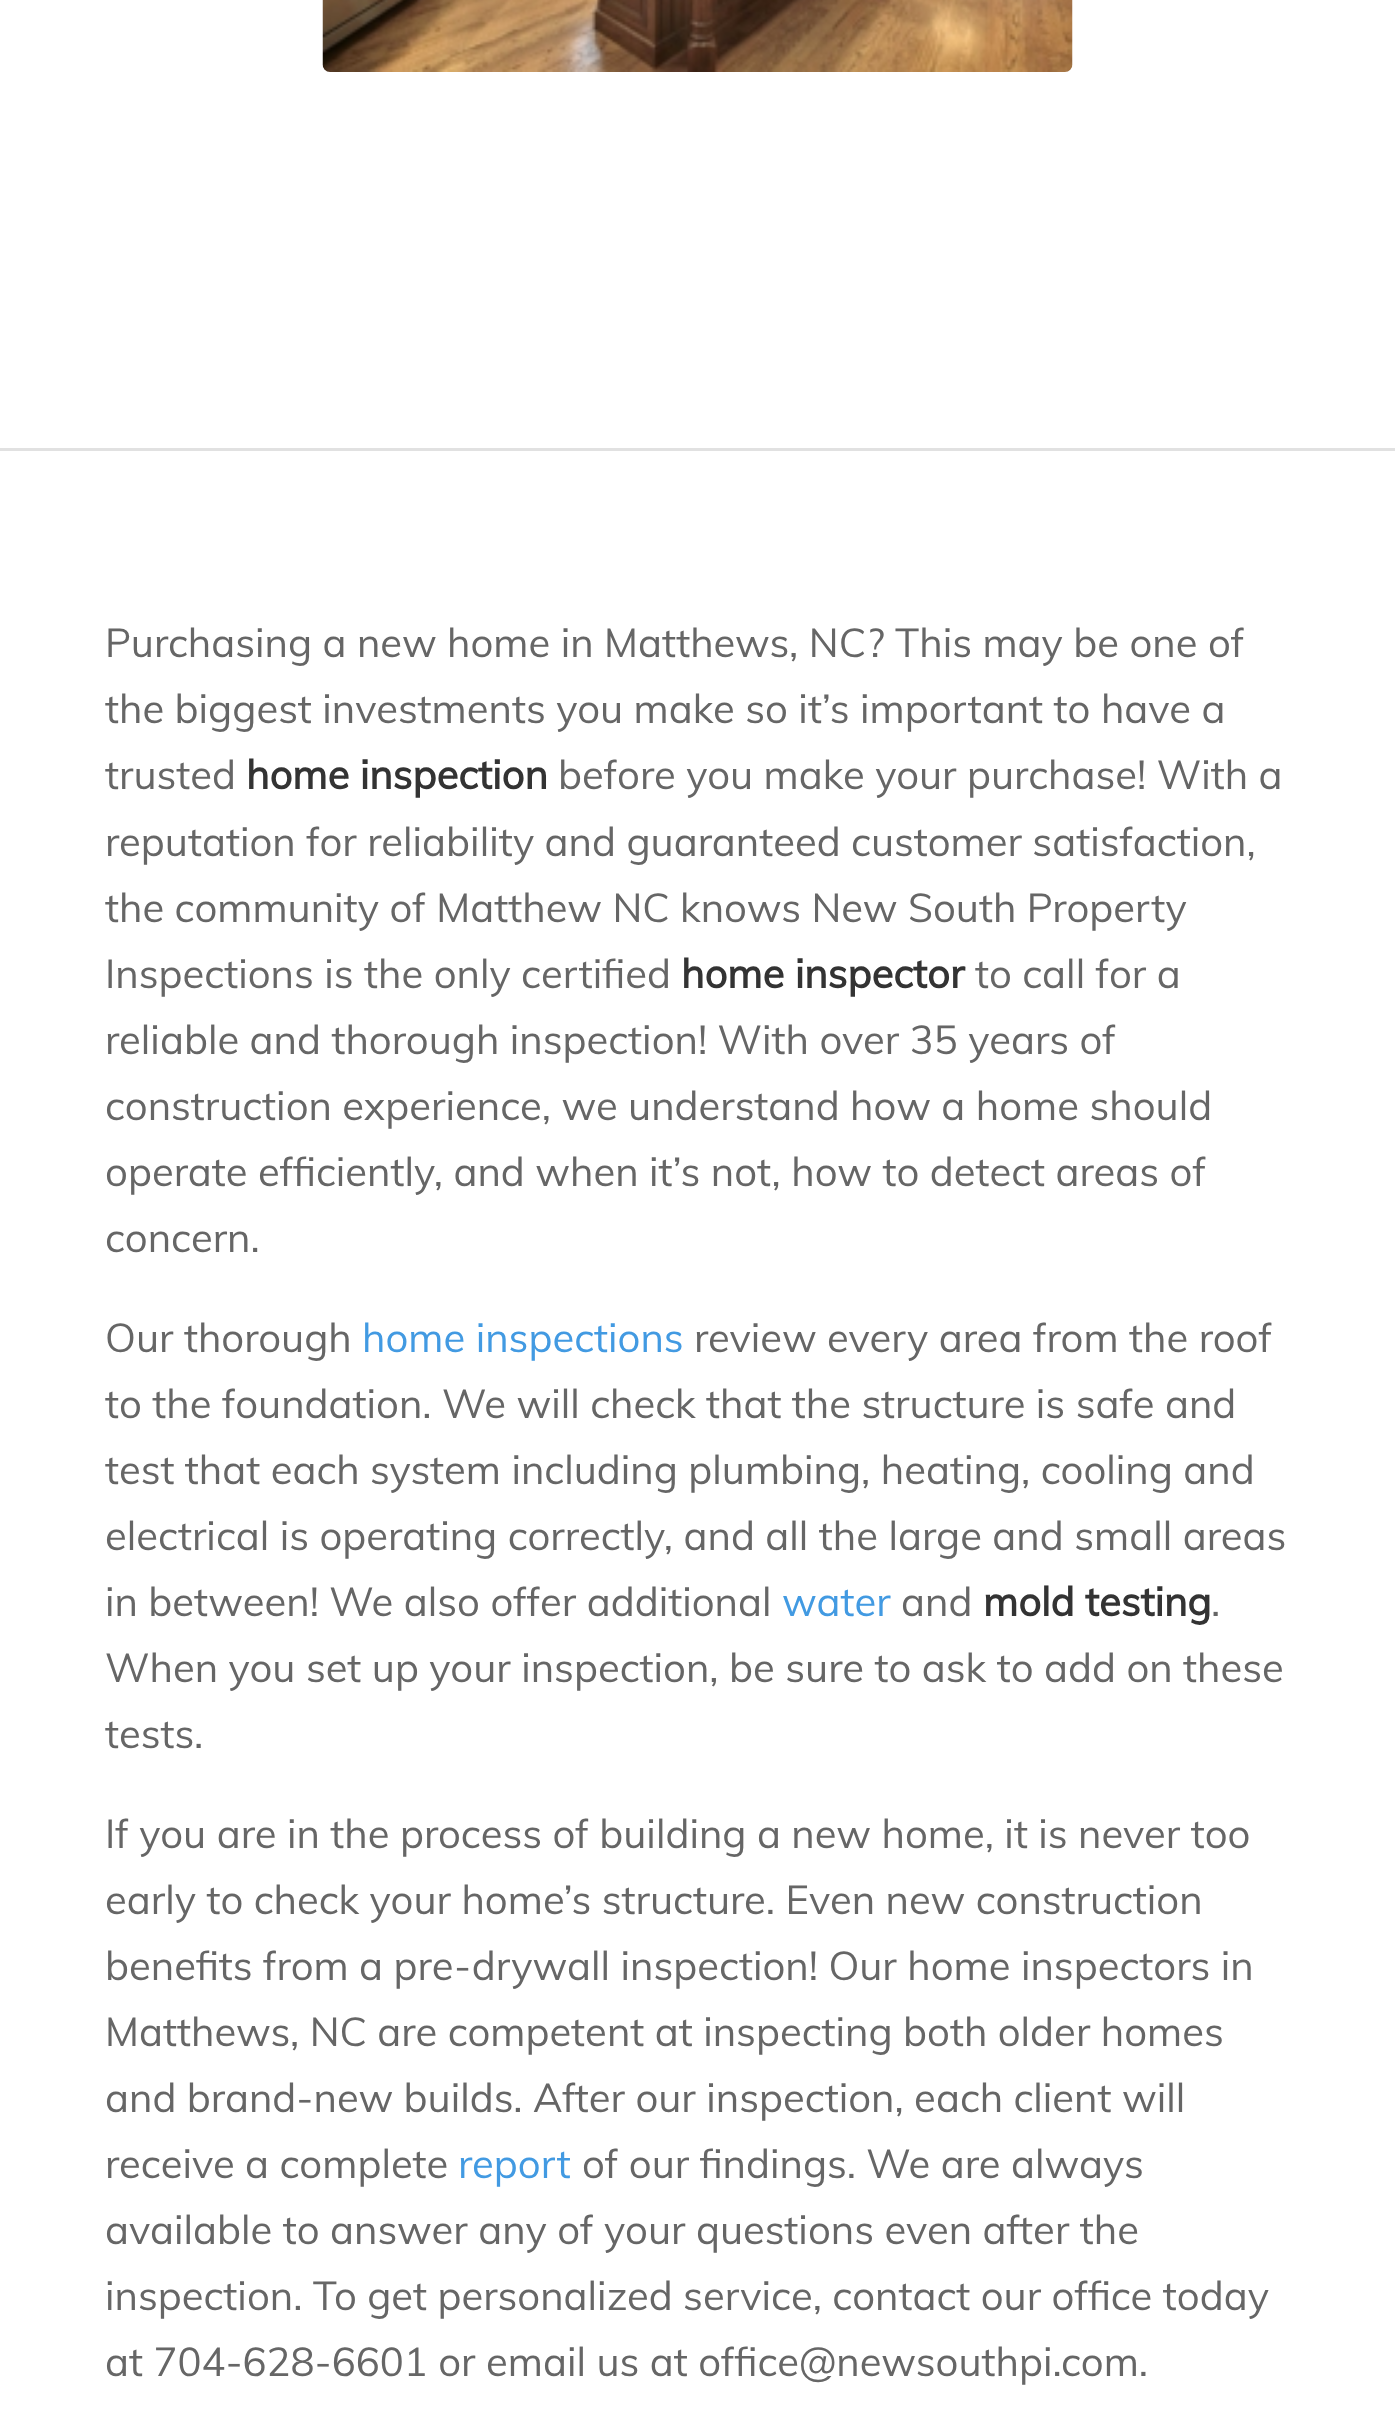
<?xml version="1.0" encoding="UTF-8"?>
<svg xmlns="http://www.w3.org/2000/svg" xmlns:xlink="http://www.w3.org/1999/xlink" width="1395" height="2418">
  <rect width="100%" height="100%" fill="#ffffff" />
  <image x="322" y="0" width="751" height="72" xlink:href="image1.png" />
  <rect y="448" width="1395" height="3" fill="#e1e1e1" />
  <text x="105" y="657" style="font-family: Muli; font-size: 40px; fill: #666666">Purchasing a new home in Matthews, NC? This may be one of</text>
  <text x="105" y="723" style="font-family: Muli; font-size: 40px; fill: #666666">the biggest investments you make so it’s important to have a</text>
  <text x="105" y="789" style="font-family: Muli; font-size: 40px; fill: #666666">trusted</text>
  <text x="246" y="789" style="font-family: Muli; font-size: 40px; font-weight: bold; fill: #333333">home inspection</text>
  <text x="558" y="789" style="font-family: Muli; font-size: 40px; fill: #666666">before you make your purchase! With a</text>
  <text x="105" y="856" style="font-family: Muli; font-size: 40px; fill: #666666">reputation for reliability and guaranteed customer satisfaction,</text>
  <text x="105" y="922" style="font-family: Muli; font-size: 40px; fill: #666666">the community of Matthew NC knows New South Property</text>
  <text x="105" y="988" style="font-family: Muli; font-size: 40px; fill: #666666">Inspections is the only certified</text>
  <text x="681" y="988" style="font-family: Muli; font-size: 40px; font-weight: bold; fill: #333333">home inspector</text>
  <text x="975" y="988" style="font-family: Muli; font-size: 40px; fill: #666666">to call for a</text>
  <text x="105" y="1054" style="font-family: Muli; font-size: 40px; fill: #666666">reliable and thorough inspection! With over 35 years of</text>
  <text x="105" y="1120" style="font-family: Muli; font-size: 40px; fill: #666666">construction experience, we understand how a home should</text>
  <text x="105" y="1186" style="font-family: Muli; font-size: 40px; fill: #666666">operate efficiently, and when it’s not, how to detect areas of</text>
  <text x="105" y="1252" style="font-family: Muli; font-size: 40px; fill: #666666">concern.</text>
  <text x="105" y="1352" style="font-family: Muli; font-size: 40px; fill: #666666">Our thorough</text>
  <text x="362" y="1352" style="font-family: Muli; font-size: 40px; fill: #429ae2">home inspections</text>
  <text x="694" y="1352" style="font-family: Muli; font-size: 40px; fill: #666666">review every area from the roof</text>
  <text x="105" y="1418" style="font-family: Muli; font-size: 40px; fill: #666666">to the foundation. We will check that the structure is safe and</text>
  <text x="105" y="1484" style="font-family: Muli; font-size: 40px; fill: #666666">test that each system including plumbing, heating, cooling and</text>
  <text x="105" y="1550" style="font-family: Muli; font-size: 40px; fill: #666666">electrical is operating correctly, and all the large and small areas</text>
  <text x="105" y="1616" style="font-family: Muli; font-size: 40px; fill: #666666">in between! We also offer additional</text>
  <text x="782" y="1616" style="font-family: Muli; font-size: 40px; fill: #429ae2">water</text>
  <text x="901" y="1616" style="font-family: Muli; font-size: 40px; fill: #666666">and</text>
  <text x="983" y="1616" style="font-family: Muli; font-size: 40px; font-weight: bold; fill: #333333">mold testing</text>
  <text x="1211" y="1616" style="font-family: Muli; font-size: 40px; fill: #666666">.</text>
  <text x="105" y="1682" style="font-family: Muli; font-size: 40px; fill: #666666">When you set up your inspection, be sure to ask to add on these</text>
  <text x="105" y="1748" style="font-family: Muli; font-size: 40px; fill: #666666">tests.</text>
  <text x="105" y="1848" style="font-family: Muli; font-size: 40px; fill: #666666">If you are in the process of building a new home, it is never too</text>
  <text x="105" y="1914" style="font-family: Muli; font-size: 40px; fill: #666666">early to check your home’s structure. Even new construction</text>
  <text x="105" y="1980" style="font-family: Muli; font-size: 40px; fill: #666666">benefits from a pre-drywall inspection! Our home inspectors in</text>
  <text x="105" y="2046" style="font-family: Muli; font-size: 40px; fill: #666666">Matthews, NC are competent at inspecting both older homes</text>
  <text x="105" y="2112" style="font-family: Muli; font-size: 40px; fill: #666666">and brand-new builds. After our inspection, each client will</text>
  <text x="105" y="2178" style="font-family: Muli; font-size: 40px; fill: #666666">receive a complete</text>
  <text x="458" y="2178" style="font-family: Muli; font-size: 40px; fill: #429ae2">report</text>
  <text x="582" y="2178" style="font-family: Muli; font-size: 40px; fill: #666666">of our findings. We are always</text>
  <text x="105" y="2244" style="font-family: Muli; font-size: 40px; fill: #666666">available to answer any of your questions even after the</text>
  <text x="105" y="2310" style="font-family: Muli; font-size: 40px; fill: #666666">inspection. To get personalized service, contact our office today</text>
  <text x="105" y="2376" style="font-family: Muli; font-size: 40px; fill: #666666">at 704-628-6601 or email us at office@newsouthpi.com.</text>
</svg>
